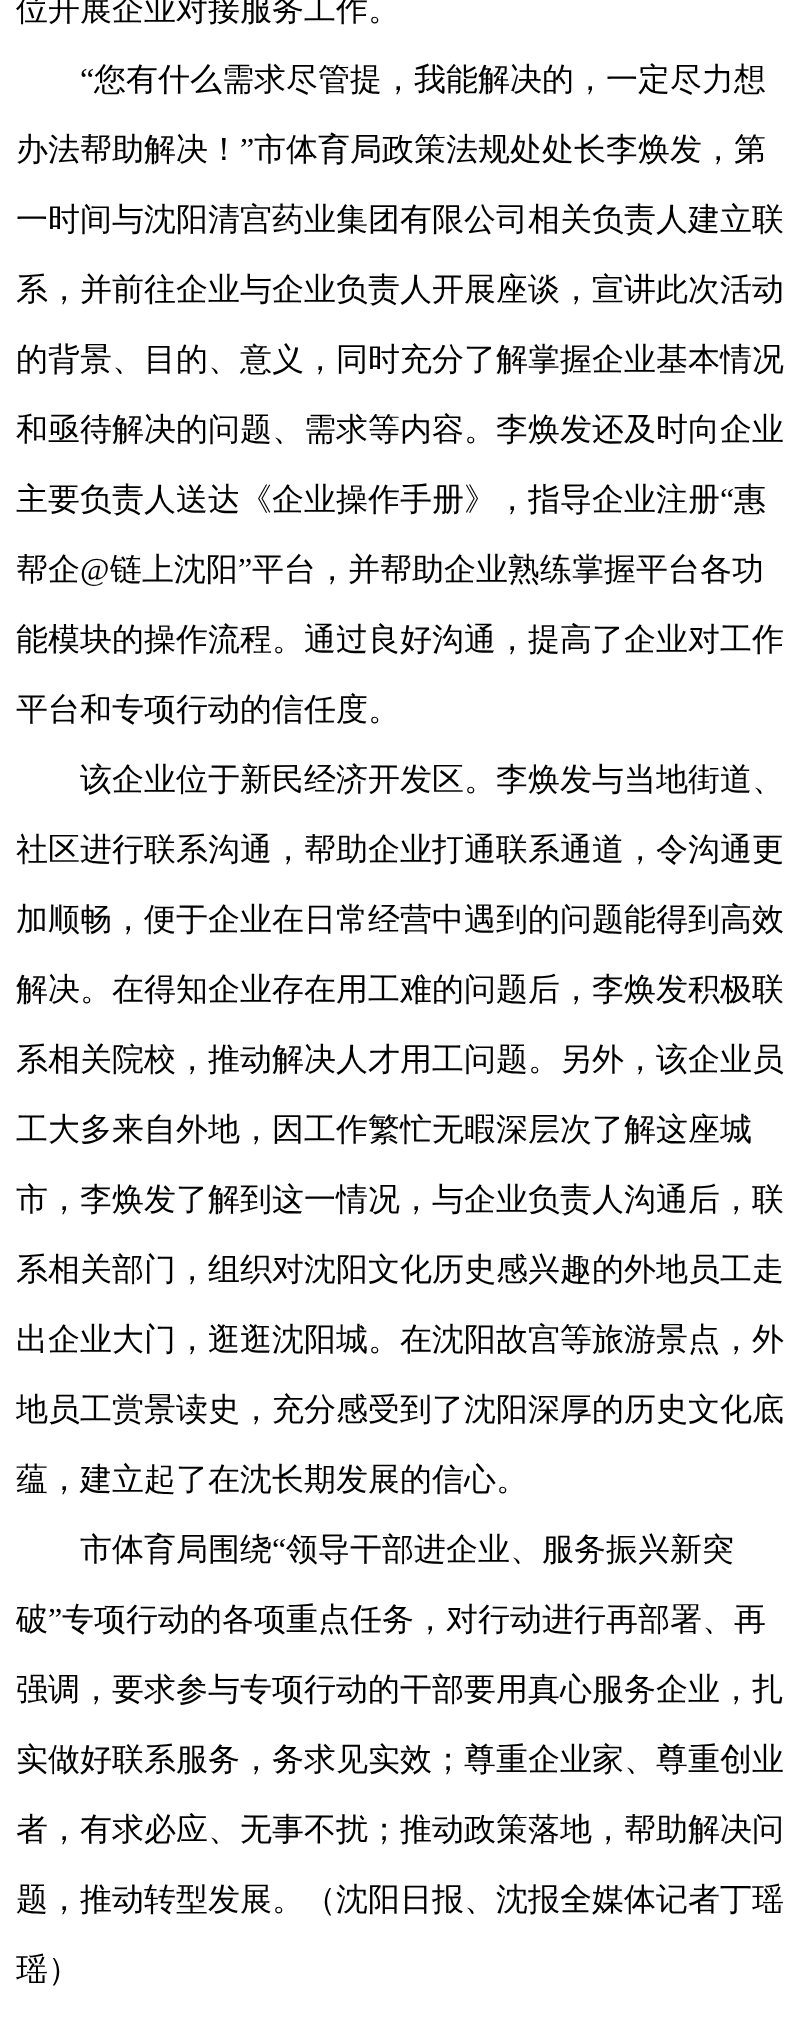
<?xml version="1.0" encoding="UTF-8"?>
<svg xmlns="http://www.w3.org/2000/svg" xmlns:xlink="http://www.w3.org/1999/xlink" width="805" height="2028">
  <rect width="100%" height="100%" fill="#ffffff" />
  <text x="16" y="20" style="font-family: WenQuanYi Zen Hei; font-size: 32px; font-weight: 500; fill: #000000">位开展企业对接服务工作。</text>
  <text x="80" y="90" style="font-family: Liberation Serif; font-size: 32px; fill: #000000">“</text>
  <text x="94" y="90" style="font-family: WenQuanYi Zen Hei; font-size: 32px; font-weight: 500; fill: #000000">您有什么需求尽管提，我能解决的，一定尽力想</text>
  <text x="16" y="160" style="font-family: WenQuanYi Zen Hei; font-size: 32px; font-weight: 500; fill: #000000">办法帮助解决！</text>
  <text x="240" y="160" style="font-family: Liberation Serif; font-size: 32px; fill: #000000">”</text>
  <text x="254" y="160" style="font-family: WenQuanYi Zen Hei; font-size: 32px; font-weight: 500; fill: #000000">市体育局政策法规处处长李焕发，第</text>
  <text x="16" y="230" style="font-family: WenQuanYi Zen Hei; font-size: 32px; font-weight: 500; fill: #000000">一时间与沈阳清宫药业集团有限公司相关负责人建立联</text>
  <text x="16" y="300" style="font-family: WenQuanYi Zen Hei; font-size: 32px; font-weight: 500; fill: #000000">系，并前往企业与企业负责人开展座谈，宣讲此次活动</text>
  <text x="16" y="370" style="font-family: WenQuanYi Zen Hei; font-size: 32px; font-weight: 500; fill: #000000">的背景、目的、意义，同时充分了解掌握企业基本情况</text>
  <text x="16" y="440" style="font-family: WenQuanYi Zen Hei; font-size: 32px; font-weight: 500; fill: #000000">和亟待解决的问题、需求等内容。李焕发还及时向企业</text>
  <text x="16" y="510" style="font-family: WenQuanYi Zen Hei; font-size: 32px; font-weight: 500; fill: #000000">主要负责人送达《企业操作手册》，指导企业注册</text>
  <text x="720" y="510" style="font-family: Liberation Serif; font-size: 32px; fill: #000000">“</text>
  <text x="734" y="510" style="font-family: WenQuanYi Zen Hei; font-size: 32px; font-weight: 500; fill: #000000">惠</text>
  <text x="16" y="580" style="font-family: WenQuanYi Zen Hei; font-size: 32px; font-weight: 500; fill: #000000">帮企</text>
  <text x="80" y="580" style="font-family: Liberation Serif; font-size: 32px; fill: #000000">@</text>
  <text x="110" y="580" style="font-family: WenQuanYi Zen Hei; font-size: 32px; font-weight: 500; fill: #000000">链上沈阳</text>
  <text x="238" y="580" style="font-family: Liberation Serif; font-size: 32px; fill: #000000">”</text>
  <text x="252" y="580" style="font-family: WenQuanYi Zen Hei; font-size: 32px; font-weight: 500; fill: #000000">平台，并帮助企业熟练掌握平台各功</text>
  <text x="16" y="650" style="font-family: WenQuanYi Zen Hei; font-size: 32px; font-weight: 500; fill: #000000">能模块的操作流程。通过良好沟通，提高了企业对工作</text>
  <text x="16" y="720" style="font-family: WenQuanYi Zen Hei; font-size: 32px; font-weight: 500; fill: #000000">平台和专项行动的信任度。</text>
  <text x="80" y="790" style="font-family: WenQuanYi Zen Hei; font-size: 32px; font-weight: 500; fill: #000000">该企业位于新民经济开发区。李焕发与当地街道、</text>
  <text x="16" y="860" style="font-family: WenQuanYi Zen Hei; font-size: 32px; font-weight: 500; fill: #000000">社区进行联系沟通，帮助企业打通联系通道，令沟通更</text>
  <text x="16" y="930" style="font-family: WenQuanYi Zen Hei; font-size: 32px; font-weight: 500; fill: #000000">加顺畅，便于企业在日常经营中遇到的问题能得到高效</text>
  <text x="16" y="1000" style="font-family: WenQuanYi Zen Hei; font-size: 32px; font-weight: 500; fill: #000000">解决。在得知企业存在用工难的问题后，李焕发积极联</text>
  <text x="16" y="1070" style="font-family: WenQuanYi Zen Hei; font-size: 32px; font-weight: 500; fill: #000000">系相关院校，推动解决人才用工问题。另外，该企业员</text>
  <text x="16" y="1140" style="font-family: WenQuanYi Zen Hei; font-size: 32px; font-weight: 500; fill: #000000">工大多来自外地，因工作繁忙无暇深层次了解这座城</text>
  <text x="16" y="1210" style="font-family: WenQuanYi Zen Hei; font-size: 32px; font-weight: 500; fill: #000000">市，李焕发了解到这一情况，与企业负责人沟通后，联</text>
  <text x="16" y="1280" style="font-family: WenQuanYi Zen Hei; font-size: 32px; font-weight: 500; fill: #000000">系相关部门，组织对沈阳文化历史感兴趣的外地员工走</text>
  <text x="16" y="1350" style="font-family: WenQuanYi Zen Hei; font-size: 32px; font-weight: 500; fill: #000000">出企业大门，逛逛沈阳城。在沈阳故宫等旅游景点，外</text>
  <text x="16" y="1420" style="font-family: WenQuanYi Zen Hei; font-size: 32px; font-weight: 500; fill: #000000">地员工赏景读史，充分感受到了沈阳深厚的历史文化底</text>
  <text x="16" y="1490" style="font-family: WenQuanYi Zen Hei; font-size: 32px; font-weight: 500; fill: #000000">蕴，建立起了在沈长期发展的信心。</text>
  <text x="80" y="1560" style="font-family: WenQuanYi Zen Hei; font-size: 32px; font-weight: 500; fill: #000000">市体育局围绕</text>
  <text x="272" y="1560" style="font-family: Liberation Serif; font-size: 32px; fill: #000000">“</text>
  <text x="286" y="1560" style="font-family: WenQuanYi Zen Hei; font-size: 32px; font-weight: 500; fill: #000000">领导干部进企业、服务振兴新突</text>
  <text x="16" y="1630" style="font-family: WenQuanYi Zen Hei; font-size: 32px; font-weight: 500; fill: #000000">破</text>
  <text x="48" y="1630" style="font-family: Liberation Serif; font-size: 32px; fill: #000000">”</text>
  <text x="62" y="1630" style="font-family: WenQuanYi Zen Hei; font-size: 32px; font-weight: 500; fill: #000000">专项行动的各项重点任务，对行动进行再部署、再</text>
  <text x="16" y="1700" style="font-family: WenQuanYi Zen Hei; font-size: 32px; font-weight: 500; fill: #000000">强调，要求参与专项行动的干部要用真心服务企业，扎</text>
  <text x="16" y="1770" style="font-family: WenQuanYi Zen Hei; font-size: 32px; font-weight: 500; fill: #000000">实做好联系服务，务求见实效；尊重企业家、尊重创业</text>
  <text x="16" y="1840" style="font-family: WenQuanYi Zen Hei; font-size: 32px; font-weight: 500; fill: #000000">者，有求必应、无事不扰；推动政策落地，帮助解决问</text>
  <text x="16" y="1910" style="font-family: WenQuanYi Zen Hei; font-size: 32px; font-weight: 500; fill: #000000">题，推动转型发展。（沈阳日报、沈报全媒体记者丁瑶</text>
  <text x="16" y="1980" style="font-family: WenQuanYi Zen Hei; font-size: 32px; font-weight: 500; fill: #000000">瑶）</text>
</svg>
